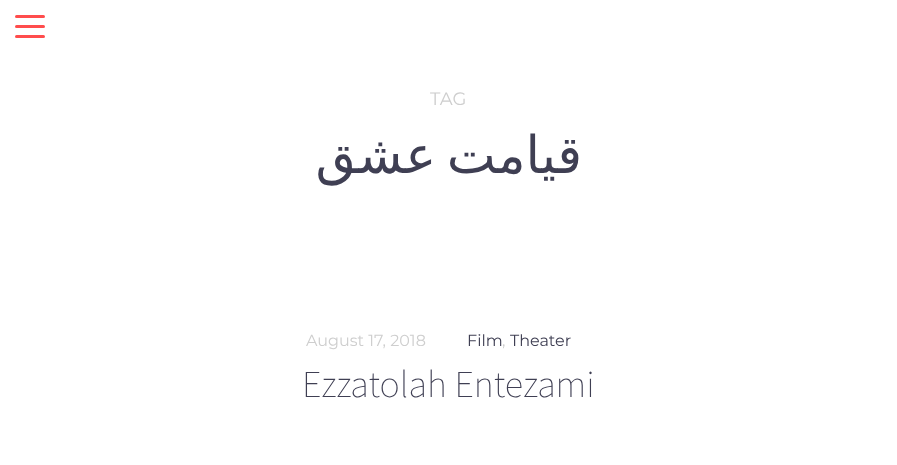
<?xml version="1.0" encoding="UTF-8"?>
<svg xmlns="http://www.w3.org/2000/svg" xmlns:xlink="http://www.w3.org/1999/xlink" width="897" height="465">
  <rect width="100%" height="100%" fill="#ffffff" />
  <rect x="15" y="25" width="30" height="3" rx="1.5" fill="#ff4d4d" />
  <rect x="15" y="15" width="30" height="3" rx="1.5" fill="#ff4d4d" />
  <rect x="15" y="35" width="30" height="3" rx="1.5" fill="#ff4d4d" />
  <text x="430" y="105" style="font-family: Montserrat; font-size: 18px; font-weight: 100; fill: #cecece">TAG</text>
  <text x="582" y="173" word-spacing="-6" style="font-family: DejaVu Sans; font-size: 52px; direction: rtl; fill: #3f3f53">قیامت عشق</text>
  <text x="306" y="346" style="font-family: Montserrat; font-size: 16px; font-weight: 100; fill: #cecece">August 17, 2018</text>
  <text x="467" y="346" style="font-family: Montserrat; font-size: 16px; font-weight: 100; fill: #3f3f53">Film</text>
  <text x="502" y="346" style="font-family: Montserrat; font-size: 16px; font-weight: 100; fill: #cecece">,</text>
  <text x="510" y="346" style="font-family: Montserrat; font-size: 16px; font-weight: 100; fill: #3f3f53">Theater</text>
  <text x="302" y="397" style="font-family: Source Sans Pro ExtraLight; font-size: 38px; font-weight: 200; fill: #3f3f53">Ezzatolah Entezami</text>
</svg>
